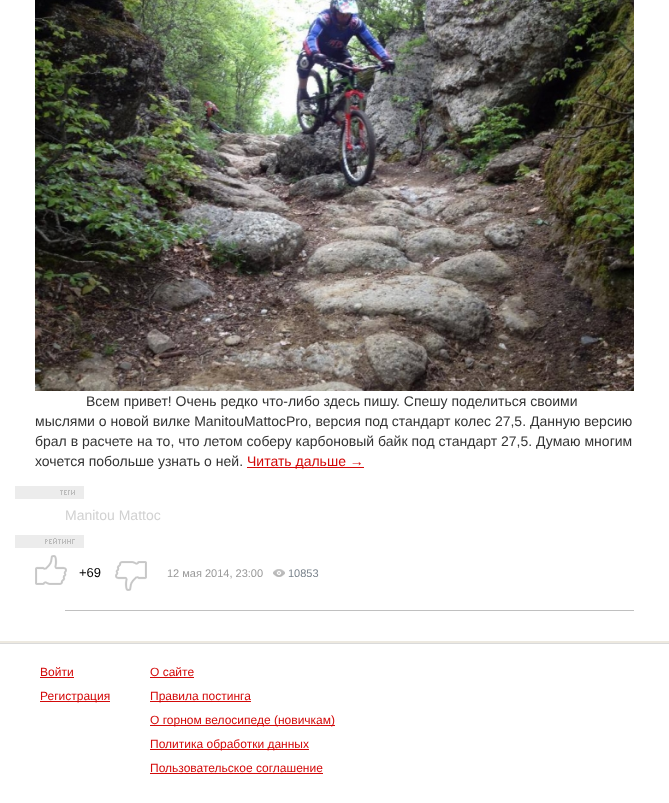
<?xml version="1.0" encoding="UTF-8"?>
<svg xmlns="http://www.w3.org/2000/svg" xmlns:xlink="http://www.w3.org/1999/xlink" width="669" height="803">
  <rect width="100%" height="100%" fill="#ffffff" />
  <rect x="65" y="610" width="569" height="1" fill="#c0c0c0" />
  <image x="35" y="0" width="599" height="391" xlink:href="image1.png" />
  <rect x="247" y="467" width="117" height="1" fill="#d30909" />
  <image x="15" y="486" width="69" height="13" xlink:href="image2.png" />
  <image x="15" y="535" width="69" height="13" xlink:href="image3.png" />
  <image x="35" y="555" width="32" height="30" xlink:href="image4.png" />
  <image x="115" y="561" width="32" height="30" xlink:href="image5.png" />
  <image x="273" y="569" width="12" height="8" xlink:href="image6.png" />
  <rect y="643" width="669" height="1" fill="#dadada" />
  <rect y="641" width="669" height="2" fill="#ede9e0" />
  <rect x="40" y="677" width="34" height="1" fill="#d30909" />
  <rect x="40" y="701" width="70" height="1" fill="#d30909" />
  <rect x="150" y="677" width="44" height="1" fill="#d30909" />
  <rect x="150" y="701" width="101" height="1" fill="#d30909" />
  <rect x="150" y="725" width="185" height="1" fill="#d30909" />
  <rect x="150" y="749" width="159" height="1" fill="#d30909" />
  <rect x="150" y="773" width="173" height="1" fill="#d30909" />
  <text x="86" y="406" style="font-family: Liberation Sans; font-size: 14px; fill: #333333">Всем привет! Очень редко что-либо здесь пишу. Спешу поделиться своими</text>
  <text x="35" y="426" style="font-family: Liberation Sans; font-size: 14px; fill: #333333">мыслями о новой вилке ManitouMattocPro, версия под стандарт колес 27,5. Данную версию</text>
  <text x="35" y="446" style="font-family: Liberation Sans; font-size: 14px; fill: #333333">брал в расчете на то, что летом соберу карбоновый байк под стандарт 27,5. Думаю многим</text>
  <text x="35" y="466" style="font-family: Liberation Sans; font-size: 14px; fill: #333333">хочется побольше узнать о ней.</text>
  <text x="247" y="466" style="font-family: Liberation Sans; font-size: 14px; fill: #d30909">Читать дальше →</text>
  <text x="65" y="520" style="font-family: Liberation Sans; font-size: 14px; fill: #d1d1d1">Manitou Mattoc</text>
  <text x="79" y="577" style="font-family: Liberation Sans; font-size: 13px; fill: #000000">+69</text>
  <text x="167" y="577" style="font-family: Liberation Sans; font-size: 11px; fill: #999999">12 мая 2014, 23:00</text>
  <text x="288" y="577" style="font-family: Liberation Sans; font-size: 11px; fill: #7b848d">10853</text>
  <text x="40" y="676" style="font-family: Liberation Sans; font-size: 12px; fill: #d30909">Войти</text>
  <text x="40" y="700" style="font-family: Liberation Sans; font-size: 12px; fill: #d30909">Регистрация</text>
  <text x="150" y="676" style="font-family: Liberation Sans; font-size: 12px; fill: #d30909">О сайте</text>
  <text x="150" y="700" style="font-family: Liberation Sans; font-size: 12px; fill: #d30909">Правила постинга</text>
  <text x="150" y="724" style="font-family: Liberation Sans; font-size: 12px; fill: #d30909">О горном велосипеде (новичкам)</text>
  <text x="150" y="748" style="font-family: Liberation Sans; font-size: 12px; fill: #d30909">Политика обработки данных</text>
  <text x="150" y="772" style="font-family: Liberation Sans; font-size: 12px; fill: #d30909">Пользовательское соглашение</text>
</svg>
